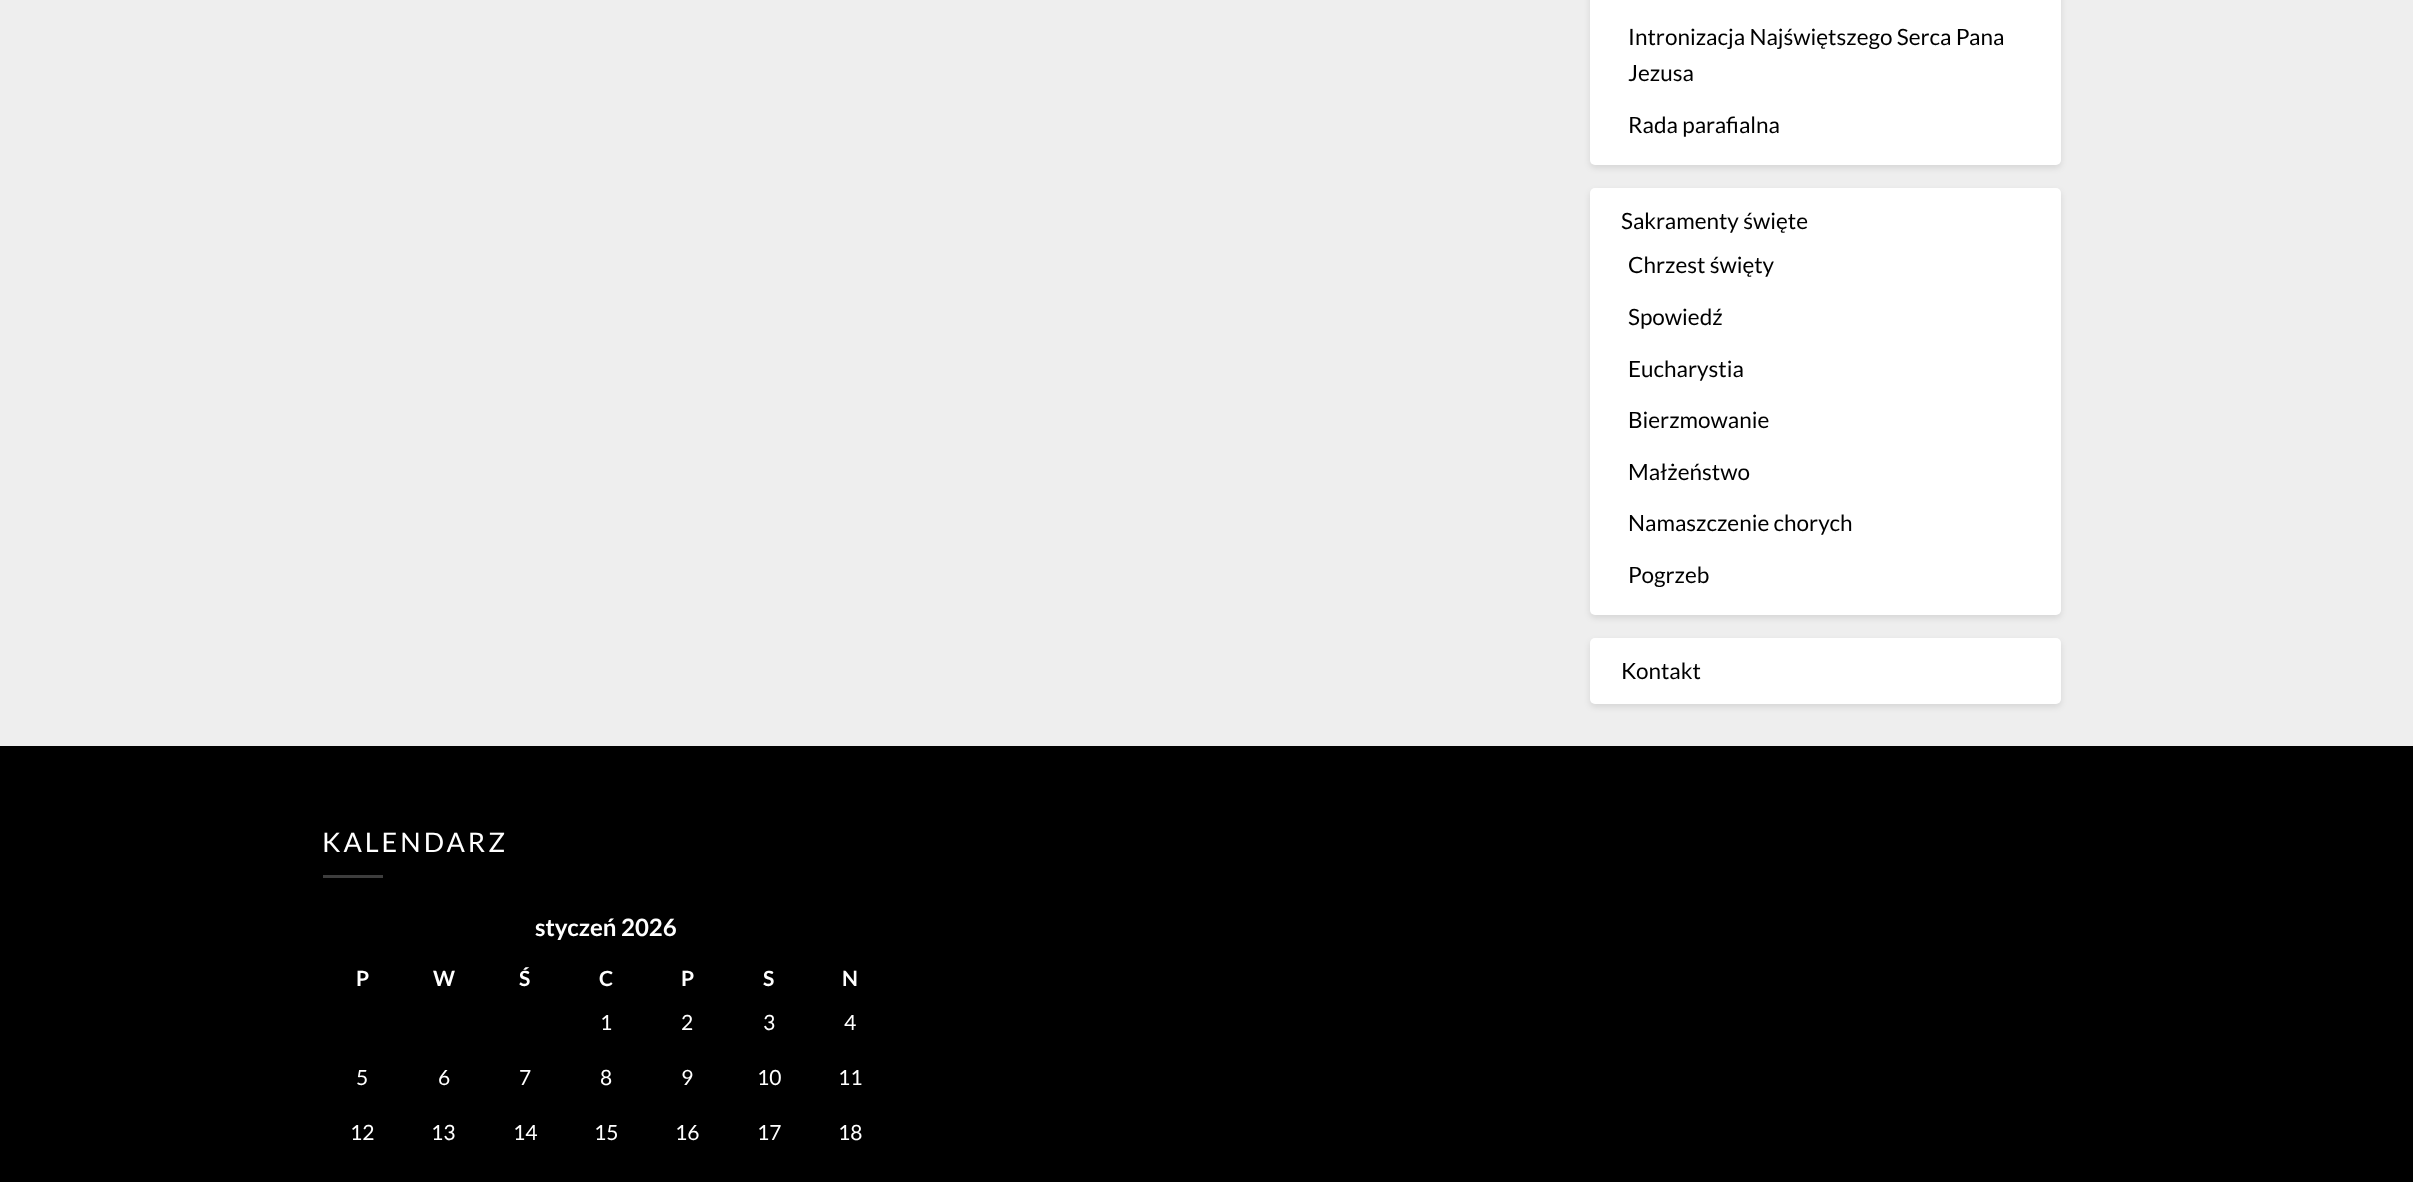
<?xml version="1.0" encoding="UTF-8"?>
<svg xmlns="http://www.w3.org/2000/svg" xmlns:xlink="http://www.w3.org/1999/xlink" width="2413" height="1182">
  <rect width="100%" height="100%" fill="#eeeeee" />
  <rect x="1590" y="-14" width="471" height="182" rx="5" fill="#000000" fill-opacity="0.1" filter="blur(3px)" />
  <rect x="1590" y="-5" width="471" height="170" rx="5" fill="#ffffff" />
  <rect x="1590" y="191" width="471" height="427" rx="5" fill="#000000" fill-opacity="0.1" filter="blur(3px)" />
  <rect x="1590" y="188" width="471" height="427" rx="5" fill="#ffffff" />
  <rect x="1590" y="641" width="471" height="66" rx="5" fill="#000000" fill-opacity="0.1" filter="blur(3px)" />
  <rect x="1590" y="638" width="471" height="66" rx="5" fill="#ffffff" />
  <rect y="746" width="2413" height="436" fill="#000000" />
  <rect x="323" y="875" width="60" height="3" fill="#3d3d3d" />
  <text x="1628" y="45" style="font-family: Lato; font-size: 22.5px; fill: #000000">Intronizacja Najświętszego Serca Pana</text>
  <text x="1628" y="81" style="font-family: Lato; font-size: 22.5px; fill: #000000">Jezusa</text>
  <text x="1628" y="133" style="font-family: Lato; font-size: 22.5px; fill: #000000">Rada parafialna</text>
  <text x="1621" y="229" style="font-family: Lato; font-size: 22.5px; fill: #000000">Sakramenty święte</text>
  <text x="1628" y="273" style="font-family: Lato; font-size: 22.5px; fill: #000000">Chrzest święty</text>
  <text x="1628" y="325" style="font-family: Lato; font-size: 22.5px; fill: #000000">Spowiedź</text>
  <text x="1628" y="377" style="font-family: Lato; font-size: 22.5px; fill: #000000">Eucharystia</text>
  <text x="1628" y="428" style="font-family: Lato; font-size: 22.5px; fill: #000000">Bierzmowanie</text>
  <text x="1628" y="480" style="font-family: Lato; font-size: 22.5px; fill: #000000">Małżeństwo</text>
  <text x="1628" y="531" style="font-family: Lato; font-size: 22.5px; fill: #000000">Namaszczenie chorych</text>
  <text x="1628" y="583" style="font-family: Lato; font-size: 22.5px; fill: #000000">Pogrzeb</text>
  <text x="1621" y="679" style="font-family: Lato; font-size: 22.5px; fill: #000000">Kontakt</text>
  <text x="322" y="852" style="font-family: Lato; font-size: 27px; letter-spacing: 3px; fill: #ffffff">KALENDARZ</text>
  <text x="535" y="936" style="font-family: Lato; font-size: 24px; font-weight: bold; fill: #ffffff">styczeń 2026</text>
  <text x="356" y="986" style="font-family: Lato; font-size: 21px; font-weight: bold; fill: #ffffff">P</text>
  <text x="433" y="986" style="font-family: Lato; font-size: 21px; font-weight: bold; fill: #ffffff">W</text>
  <text x="519" y="986" style="font-family: Lato; font-size: 21px; font-weight: bold; fill: #ffffff">Ś</text>
  <text x="599" y="986" style="font-family: Lato; font-size: 21px; font-weight: bold; fill: #ffffff">C</text>
  <text x="681" y="986" style="font-family: Lato; font-size: 21px; font-weight: bold; fill: #ffffff">P</text>
  <text x="763" y="986" style="font-family: Lato; font-size: 21px; font-weight: bold; fill: #ffffff">S</text>
  <text x="842" y="986" style="font-family: Lato; font-size: 21px; font-weight: bold; fill: #ffffff">N</text>
  <text x="600" y="1030" style="font-family: Lato; font-size: 21px; fill: #ffffff">1</text>
  <text x="681" y="1030" style="font-family: Lato; font-size: 21px; fill: #ffffff">2</text>
  <text x="763" y="1030" style="font-family: Lato; font-size: 21px; fill: #ffffff">3</text>
  <text x="844" y="1030" style="font-family: Lato; font-size: 21px; fill: #ffffff">4</text>
  <text x="356" y="1085" style="font-family: Lato; font-size: 21px; fill: #ffffff">5</text>
  <text x="438" y="1085" style="font-family: Lato; font-size: 21px; fill: #ffffff">6</text>
  <text x="519" y="1085" style="font-family: Lato; font-size: 21px; fill: #ffffff">7</text>
  <text x="600" y="1085" style="font-family: Lato; font-size: 21px; fill: #ffffff">8</text>
  <text x="681" y="1085" style="font-family: Lato; font-size: 21px; fill: #ffffff">9</text>
  <text x="757" y="1085" style="font-family: Lato; font-size: 21px; fill: #ffffff">10</text>
  <text x="838" y="1085" style="font-family: Lato; font-size: 21px; fill: #ffffff">11</text>
  <text x="350" y="1140" style="font-family: Lato; font-size: 21px; fill: #ffffff">12</text>
  <text x="431" y="1140" style="font-family: Lato; font-size: 21px; fill: #ffffff">13</text>
  <text x="513" y="1140" style="font-family: Lato; font-size: 21px; fill: #ffffff">14</text>
  <text x="594" y="1140" style="font-family: Lato; font-size: 21px; fill: #ffffff">15</text>
  <text x="675" y="1140" style="font-family: Lato; font-size: 21px; fill: #ffffff">16</text>
  <text x="757" y="1140" style="font-family: Lato; font-size: 21px; fill: #ffffff">17</text>
  <text x="838" y="1140" style="font-family: Lato; font-size: 21px; fill: #ffffff">18</text>
</svg>
